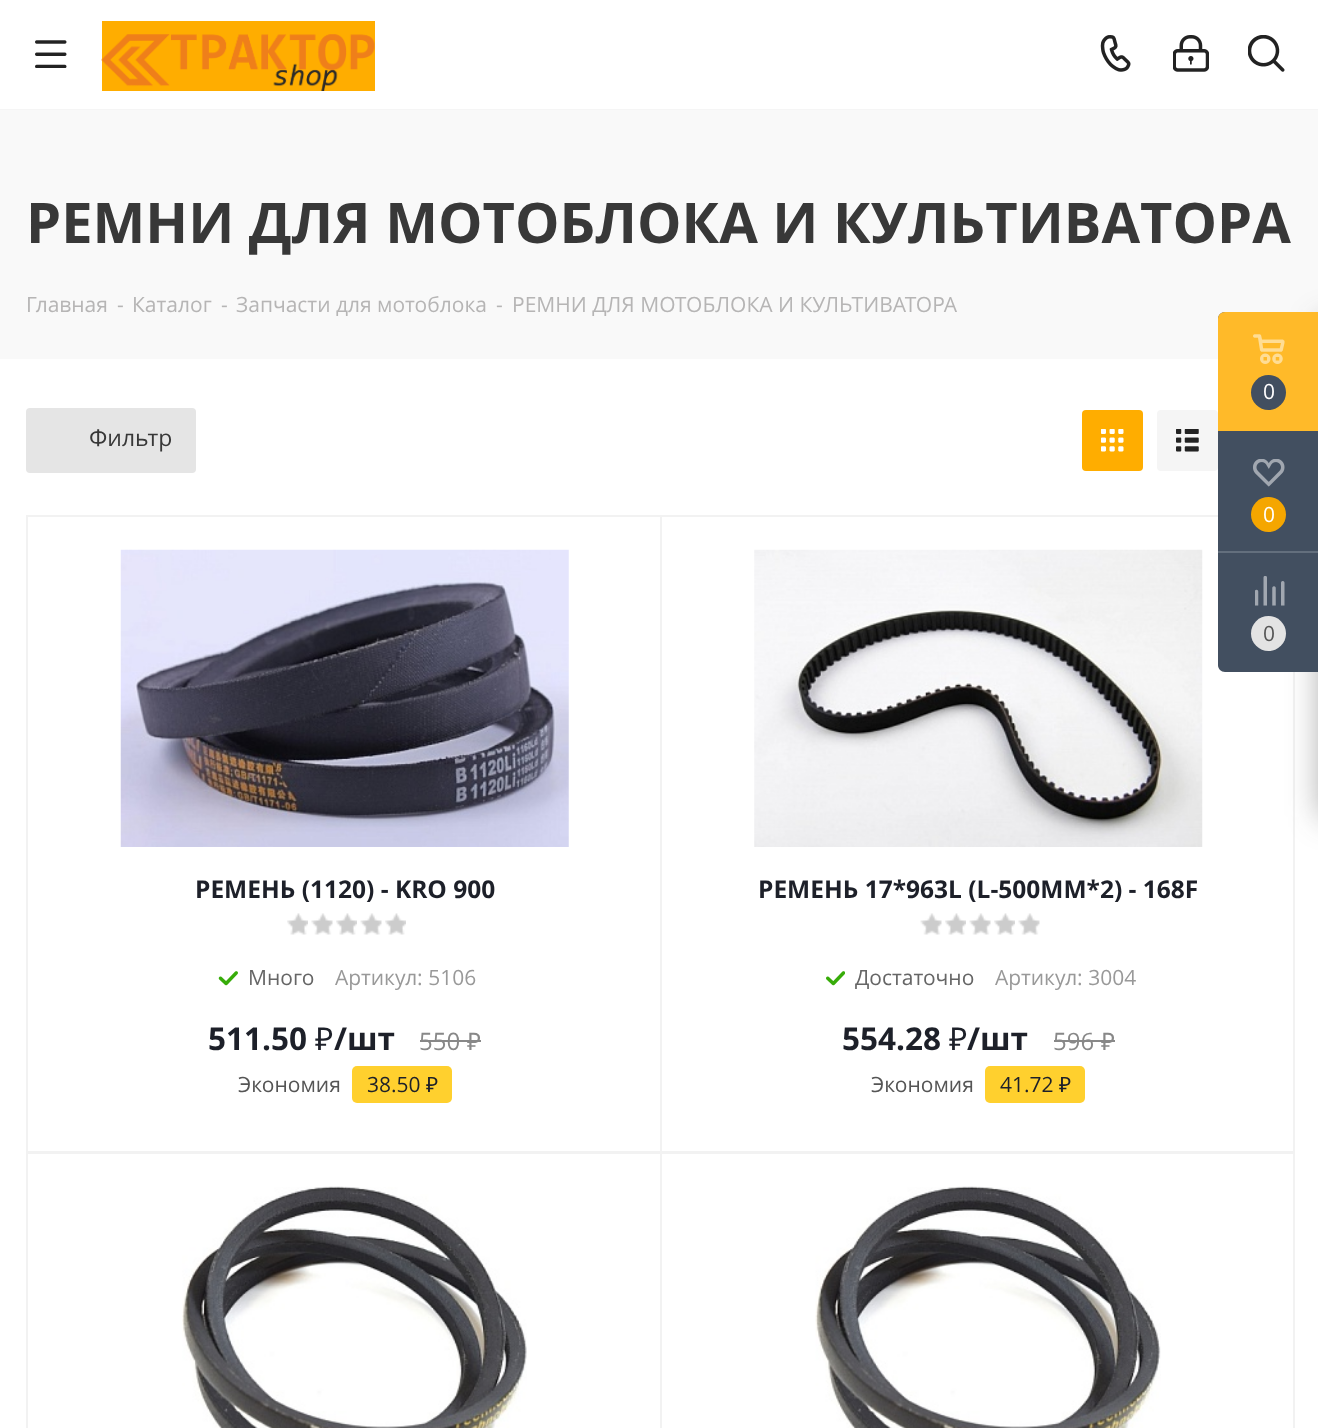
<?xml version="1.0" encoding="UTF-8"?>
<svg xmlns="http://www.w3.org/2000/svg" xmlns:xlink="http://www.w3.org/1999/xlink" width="1318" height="1428">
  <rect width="100%" height="100%" fill="#ffffff" />
  <rect y="109" width="1318" height="1" fill="#f5f5f5" />
  <image x="35" y="40" width="32" height="28" xlink:href="image1.png" />
  <rect x="102" y="21" width="273" height="70" fill="#ffad00" />
  <image x="101" y="34" width="274" height="57" xlink:href="image2.png" />
  <image x="1100" y="35" width="31" height="37" xlink:href="image3.png" />
  <image x="1173" y="35" width="36" height="37" xlink:href="image4.png" />
  <image x="1248" y="35" width="37" height="37" xlink:href="image5.png" />
  <rect y="110" width="1318" height="249" fill="#f9f9f9" />
  <rect x="26" y="408" width="170" height="65" rx="4" fill="#e5e5e5" />
  <rect x="1082" y="410" width="61" height="61" rx="4" fill="#ffad00" />
  <image x="1101" y="429" width="23" height="23" xlink:href="image6.png" />
  <rect x="1157" y="410" width="61" height="61" rx="4" fill="#f5f5f5" />
  <image x="1176" y="429" width="23" height="23" xlink:href="image7.png" />
  <rect x="27" y="516" width="634" height="636" fill="none" stroke="#f2f2f2" stroke-width="2" />
  <image x="120" y="549" width="449" height="298" xlink:href="image8.png" />
  <image x="287" y="913" width="21" height="22" xlink:href="image9.png" />
  <image x="311" y="913" width="22" height="22" xlink:href="image10.png" />
  <image x="336" y="913" width="21" height="22" xlink:href="image11.png" />
  <image x="360" y="913" width="22" height="22" xlink:href="image12.png" />
  <image x="385" y="913" width="21" height="22" xlink:href="image13.png" />
  <image x="218" y="971" width="20" height="15" xlink:href="image14.png" />
  <rect x="420" y="1040" width="40" height="2" fill="#888888" />
  <rect x="460" y="1040" width="21" height="2" fill="#888888" />
  <rect x="352" y="1066" width="100" height="37" rx="5" fill="#ffd02e" />
  <rect x="661" y="516" width="633" height="636" fill="none" stroke="#f2f2f2" stroke-width="2" />
  <image x="754" y="549" width="449" height="298" xlink:href="image15.png" />
  <image x="920" y="913" width="22" height="22" xlink:href="image12.png" />
  <image x="945" y="913" width="21" height="22" xlink:href="image13.png" />
  <image x="969" y="913" width="22" height="22" xlink:href="image12.png" />
  <image x="994" y="913" width="21" height="22" xlink:href="image13.png" />
  <image x="1018" y="913" width="22" height="22" xlink:href="image10.png" />
  <image x="826" y="971" width="19" height="15" xlink:href="image16.png" />
  <rect x="1054" y="1040" width="40" height="2" fill="#888888" />
  <rect x="1094" y="1040" width="21" height="2" fill="#888888" />
  <rect x="985" y="1066" width="100" height="37" rx="5" fill="#ffd02e" />
  <rect x="27" y="1153" width="634" height="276" fill="none" stroke="#f2f2f2" stroke-width="2" />
  <image x="182" y="1186" width="345" height="242" xlink:href="image17.png" />
  <rect x="661" y="1153" width="633" height="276" fill="none" stroke="#f2f2f2" stroke-width="2" />
  <image x="815" y="1186" width="346" height="242" xlink:href="image18.png" />
  <rect x="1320" y="322" width="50" height="495" rx="4" fill="#2c2c2c" fill-opacity="0.4" filter="blur(16px)" />
  <path d="M 1225 312 h 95 v 360 h -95 c -4 0 -7 -3 -7 -7 v -346 c 0 -4 3 -7 7 -7 z" fill="#424f60" />
  <path d="M 1225 312 h 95 v 119 h -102 v -112 c 0 -4 3 -7 7 -7 z" fill="#ffba29" />
  <image x="1253" y="334" width="32" height="30" xlink:href="image19.png" />
  <circle cx="1268.5" cy="392.5" r="17.5" fill="#424f60" />
  <image x="1253" y="459" width="32" height="28" xlink:href="image20.png" />
  <circle cx="1268.5" cy="514.5" r="17.5" fill="#f5a600" />
  <rect x="1218" y="551" width="100" height="2" fill="#636f7d" />
  <image x="1255" y="576" width="30" height="30" xlink:href="image21.png" />
  <circle cx="1268.5" cy="633.5" r="17.5" fill="#e3e3e3" />
  <text x="26" y="243" style="font-family: Open Sans; font-size: 56px; font-weight: bold; fill: #383838">РЕМНИ ДЛЯ МОТОБЛОКА И КУЛЬТИВАТОРА</text>
  <text x="26" y="312" style="font-family: Open Sans; font-size: 21px; fill: #b6b5b5">Главная</text>
  <text x="117" y="312" style="font-family: Open Sans; font-size: 21px; fill: #b6b5b5">-</text>
  <text x="132" y="312" style="font-family: Open Sans; font-size: 21px; fill: #b6b5b5">Каталог</text>
  <text x="221" y="312" style="font-family: Open Sans; font-size: 21px; fill: #b6b5b5">-</text>
  <text x="236" y="312" style="font-family: Open Sans; font-size: 21px; fill: #b6b5b5">Запчасти для мотоблока</text>
  <text x="496" y="312" style="font-family: Open Sans; font-size: 21px; fill: #b6b5b5">-</text>
  <text x="512" y="312" style="font-family: Open Sans; font-size: 21px; fill: #b6b5b5">РЕМНИ ДЛЯ МОТОБЛОКА И КУЛЬТИВАТОРА</text>
  <text x="89" y="446" style="font-family: Open Sans; font-size: 23px; fill: #383838">Фильтр</text>
  <text x="195" y="898" style="font-family: Open Sans; font-size: 24.5px; font-weight: bold; fill: #1d2029">РЕМЕНЬ (1120) - KRO 900</text>
  <text x="248" y="985" style="font-family: Open Sans; font-size: 21px; fill: #666666">Много</text>
  <text x="335" y="985" style="font-family: Open Sans; font-size: 21px; fill: #999999">Артикул: 5106</text>
  <text x="208" y="1050" style="font-family: Open Sans; font-size: 31.5px; font-weight: bold; fill: #1d2029">511.50</text>
  <text x="315" y="1050" style="font-family: Noto Sans; font-size: 31.5px; fill: #1d2029">₽</text>
  <text x="334" y="1050" style="font-family: Open Sans; font-size: 31.5px; font-weight: bold; fill: #1d2029">/шт</text>
  <text x="419" y="1050" style="font-family: Open Sans; font-size: 24px; fill: #888888">550</text>
  <text x="467" y="1050" style="font-family: Noto Sans; font-size: 24px; fill: #888888">₽</text>
  <text x="238" y="1092" style="font-family: Open Sans; font-size: 21px; fill: #555555">Экономия</text>
  <text x="367" y="1092" style="font-family: Open Sans; font-size: 21px; fill: #1d2029">38.50</text>
  <text x="426" y="1092" style="font-family: Noto Sans; font-size: 21px; fill: #1d2029">₽</text>
  <text x="758" y="898" style="font-family: Open Sans; font-size: 24.5px; font-weight: bold; fill: #1d2029">РЕМЕНЬ 17*963L (L-500MM*2) - 168F</text>
  <text x="855" y="985" style="font-family: Open Sans; font-size: 21px; fill: #666666">Достаточно</text>
  <text x="995" y="985" style="font-family: Open Sans; font-size: 21px; fill: #999999">Артикул: 3004</text>
  <text x="842" y="1050" style="font-family: Open Sans; font-size: 31.5px; font-weight: bold; fill: #1d2029">554.28</text>
  <text x="949" y="1050" style="font-family: Noto Sans; font-size: 31.5px; fill: #1d2029">₽</text>
  <text x="967" y="1050" style="font-family: Open Sans; font-size: 31.5px; font-weight: bold; fill: #1d2029">/шт</text>
  <text x="1053" y="1050" style="font-family: Open Sans; font-size: 24px; fill: #888888">596</text>
  <text x="1101" y="1050" style="font-family: Noto Sans; font-size: 24px; fill: #888888">₽</text>
  <text x="871" y="1092" style="font-family: Open Sans; font-size: 21px; fill: #555555">Экономия</text>
  <text x="1000" y="1092" style="font-family: Open Sans; font-size: 21px; fill: #1d2029">41.72</text>
  <text x="1059" y="1092" style="font-family: Noto Sans; font-size: 21px; fill: #1d2029">₽</text>
  <text x="1263" y="399" style="font-family: Open Sans; font-size: 21px; fill: #ffffff">0</text>
  <text x="1263" y="522" style="font-family: Open Sans; font-size: 21px; fill: #ffffff">0</text>
  <text x="1263" y="641" style="font-family: Open Sans; font-size: 21px; fill: #555555">0</text>
</svg>
